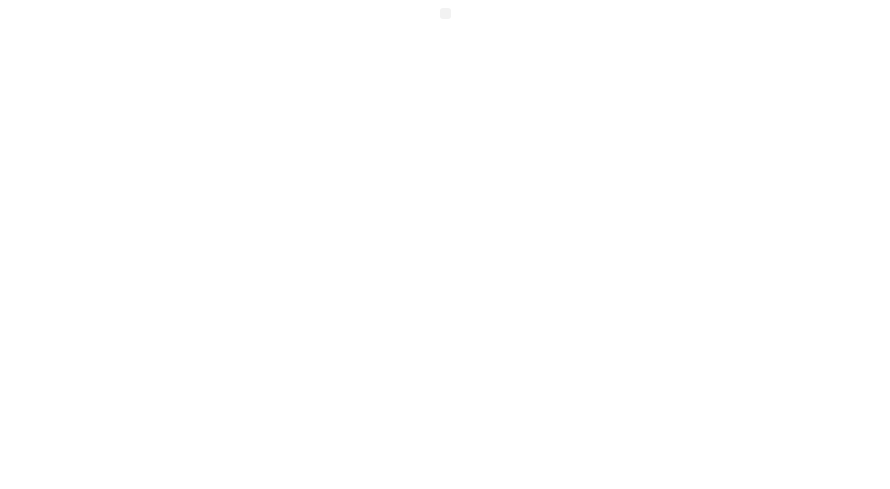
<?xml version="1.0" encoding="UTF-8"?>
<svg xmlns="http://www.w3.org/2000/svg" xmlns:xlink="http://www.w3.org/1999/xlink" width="890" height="489">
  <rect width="100%" height="100%" fill="#ffffff" />
  <rect x="440" y="8" width="11" height="11" rx="3" fill="#f2f2f2" />
</svg>
